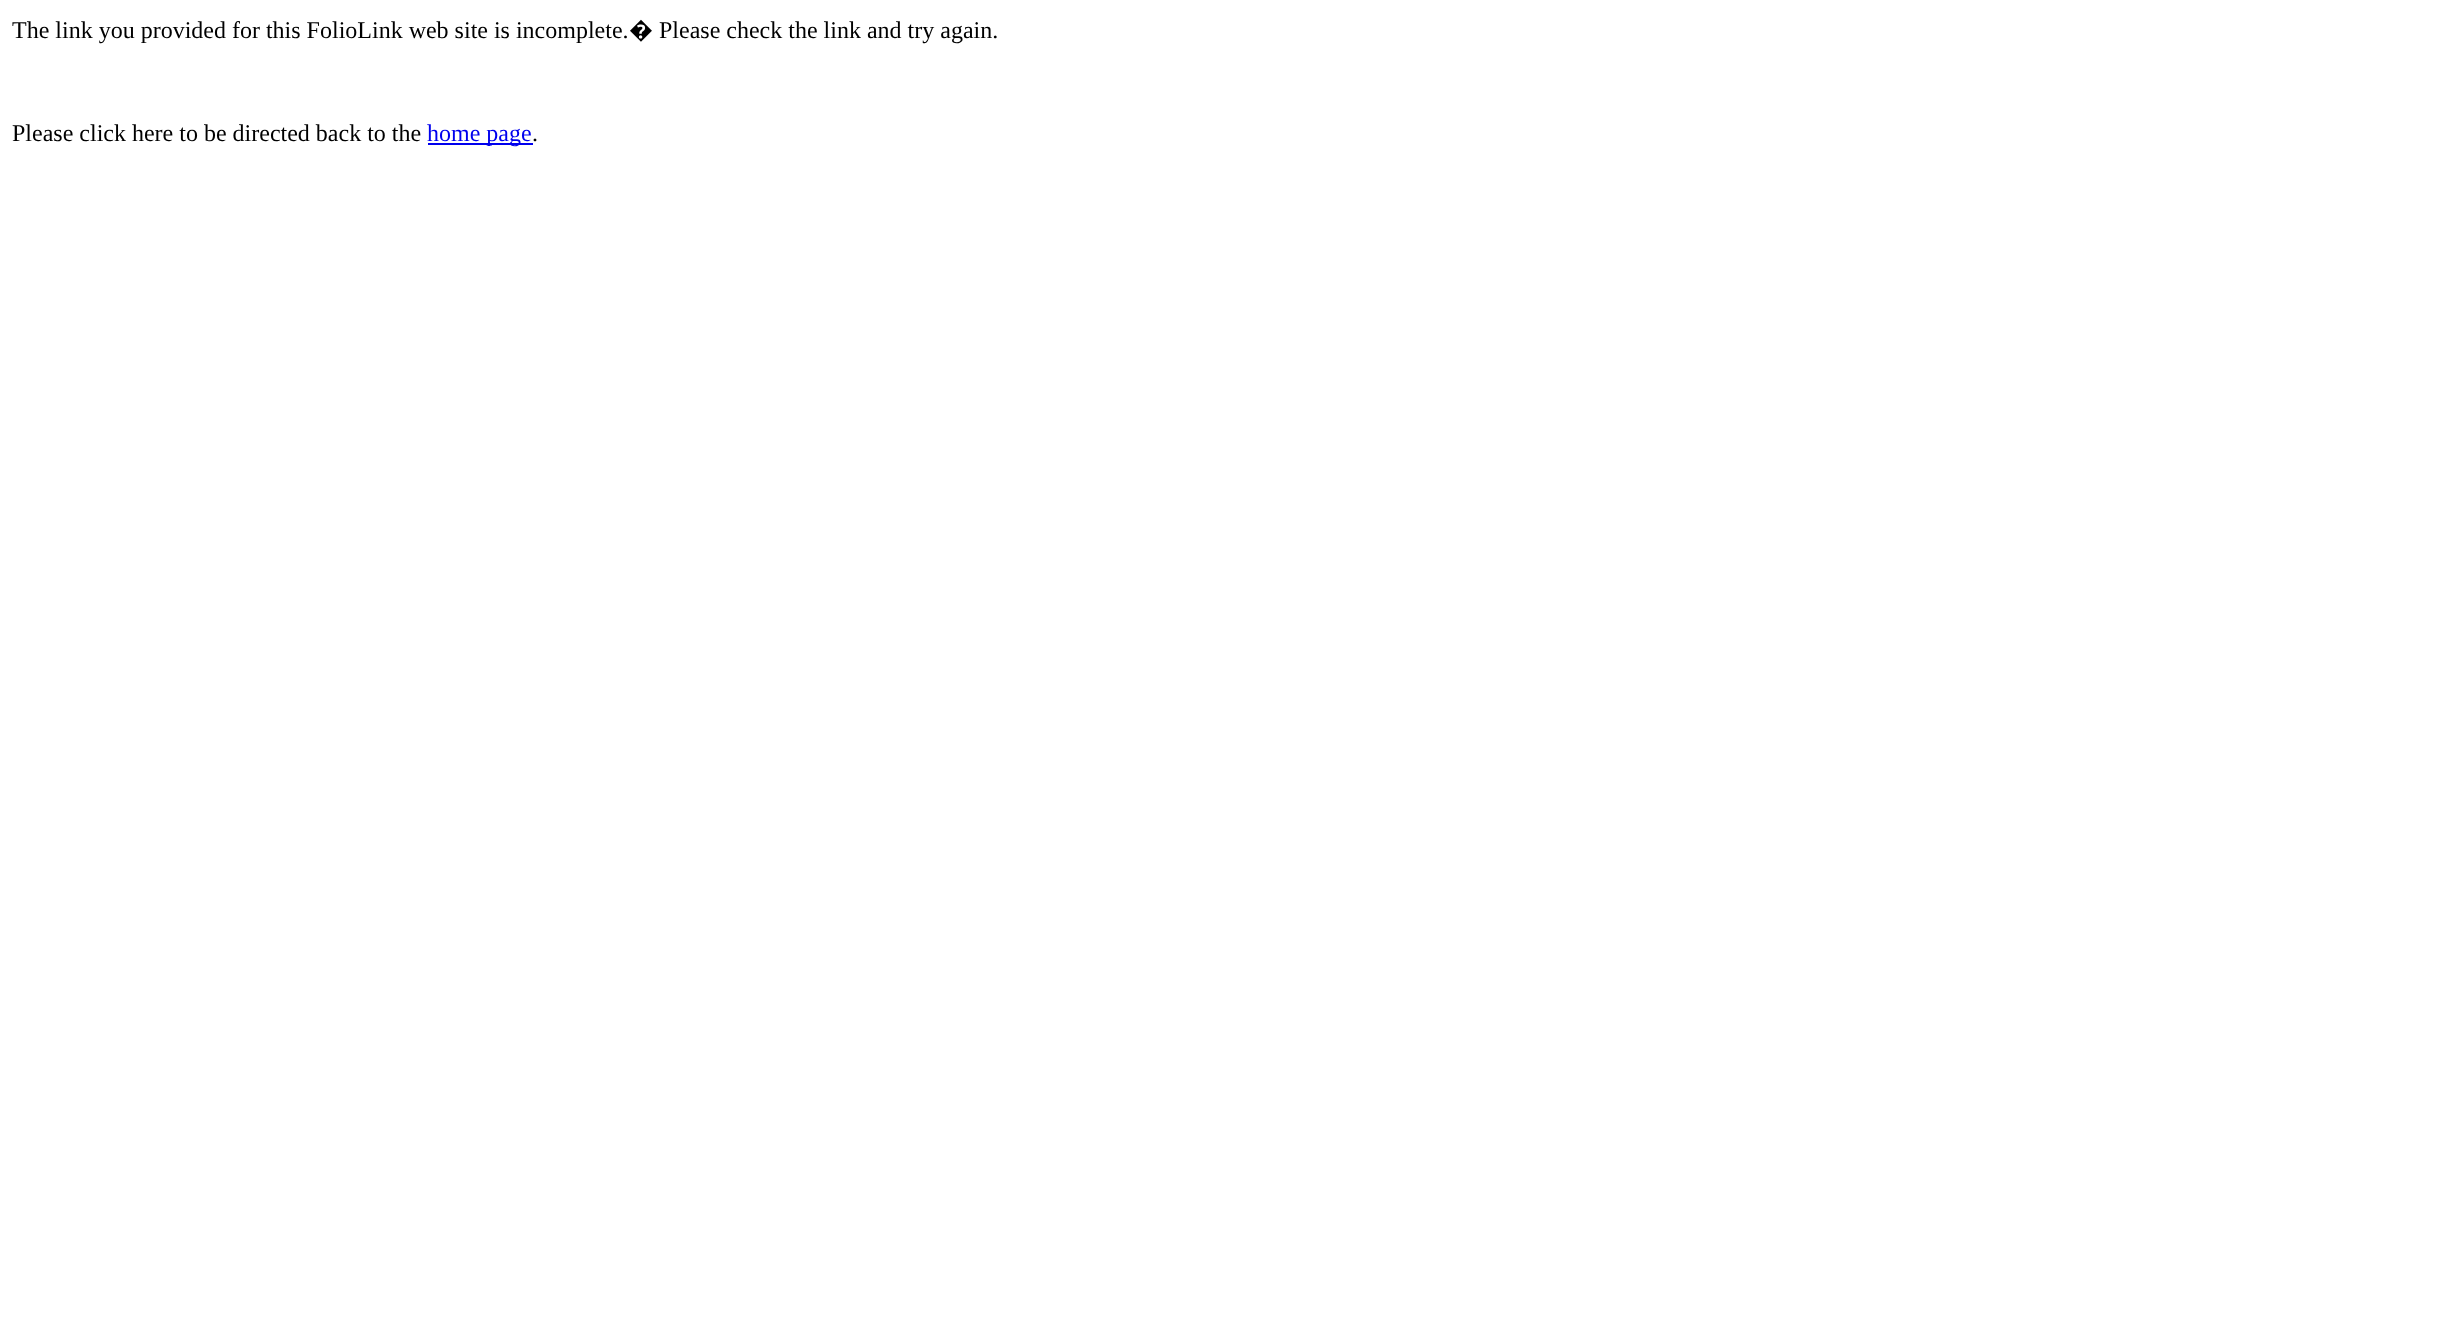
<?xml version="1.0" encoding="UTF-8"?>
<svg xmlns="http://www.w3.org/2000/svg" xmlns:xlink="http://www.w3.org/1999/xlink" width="2463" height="1325">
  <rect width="100%" height="100%" fill="#ffffff" />
  <rect x="428" y="143" width="105" height="2" fill="#0000ee" />
  <text x="12" y="38" style="font-family: Liberation Serif; font-size: 24px; fill: #000000">The link you provided for this FolioLink web site is incomplete.</text>
  <text x="629" y="38" style="font-family: Noto Sans; font-size: 24px; fill: #000000">�</text>
  <text x="659" y="38" style="font-family: Liberation Serif; font-size: 24px; fill: #000000">Please check the link and try again.</text>
  <text x="12" y="141" style="font-family: Liberation Serif; font-size: 24px; fill: #000000">Please click here to be directed back to the</text>
  <text x="427" y="141" style="font-family: Liberation Serif; font-size: 24px; fill: #0000ee">home page</text>
  <text x="532" y="141" style="font-family: Liberation Serif; font-size: 24px; fill: #000000">.</text>
</svg>
